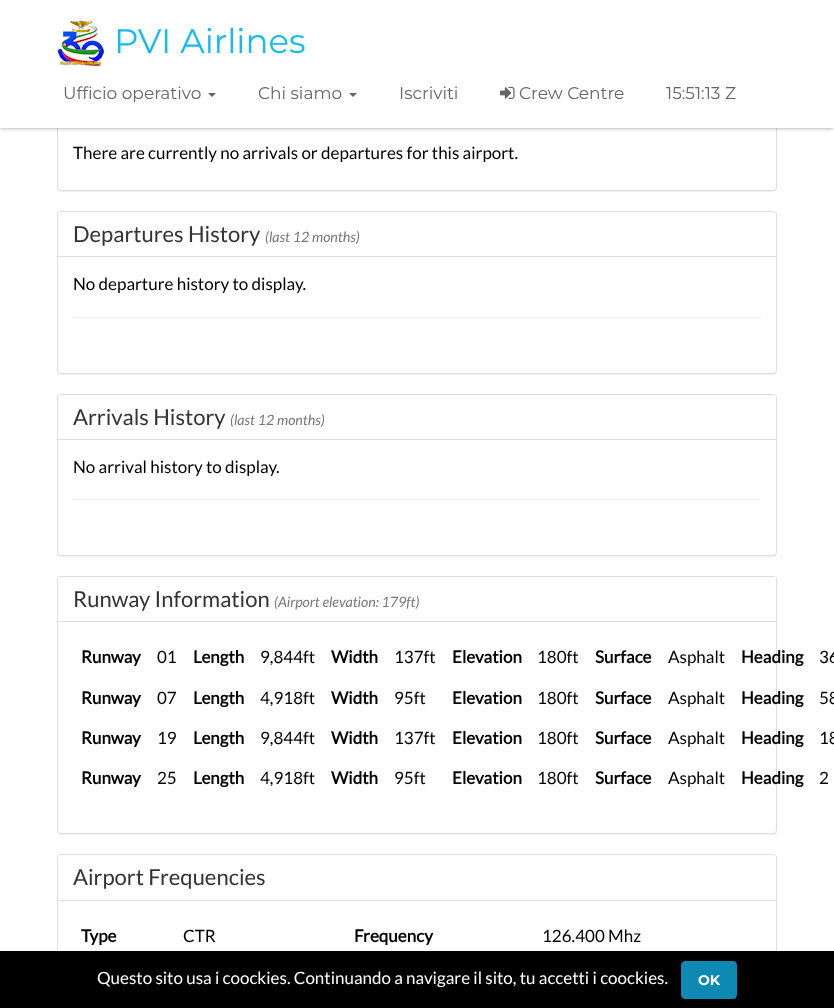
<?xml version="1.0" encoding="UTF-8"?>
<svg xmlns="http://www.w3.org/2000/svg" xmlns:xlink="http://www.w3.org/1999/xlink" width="834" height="1008">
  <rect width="100%" height="100%" fill="#ffffff" />
  <rect x="57" y="81" width="720" height="111" rx="4" fill="#000000" fill-opacity="0.05" filter="blur(0.5px)" />
  <rect x="57.5" y="80.5" width="719" height="110" rx="3.5" fill="#ffffff" stroke="#dddddd" />
  <rect width="834" height="128" fill="#000000" fill-opacity="0.4" filter="blur(2px)" />
  <rect width="834" height="128" fill="#ffffff" />
  <image x="58" y="20" width="46" height="47" xlink:href="image1.png" />
  <path d="M 208 93 h 8 l -4 4 z" fill="#666666" />
  <path d="M 349 93 h 8 l -4 4 z" fill="#666666" />
  <image x="500" y="86" width="15" height="13" xlink:href="image2.png" />
  <rect x="57" y="212" width="720" height="163" rx="4" fill="#000000" fill-opacity="0.05" filter="blur(0.5px)" />
  <rect x="57.5" y="211.5" width="719" height="162" rx="3.5" fill="#ffffff" stroke="#dddddd" />
  <path d="M 61 212 h 712 c 1.5 0 3 1.5 3 3 v 42 h -718 v -42 c 0 -1.5 1.5 -3 3 -3 z" fill="#ffffff" />
  <rect x="58" y="256" width="718" height="1" fill="#dddddd" />
  <rect x="73" y="317" width="688" height="1" fill="#eeeeee" />
  <rect x="57" y="395" width="720" height="162" rx="4" fill="#000000" fill-opacity="0.05" filter="blur(0.5px)" />
  <rect x="57.5" y="394.5" width="719" height="161" rx="3.5" fill="#ffffff" stroke="#dddddd" />
  <path d="M 61 395 h 712 c 1.5 0 3 1.5 3 3 v 42 h -718 v -42 c 0 -1.5 1.5 -3 3 -3 z" fill="#ffffff" />
  <rect x="58" y="439" width="718" height="1" fill="#dddddd" />
  <rect x="73" y="499" width="688" height="1" fill="#eeeeee" />
  <rect x="57" y="577" width="720" height="258" rx="4" fill="#000000" fill-opacity="0.05" filter="blur(0.5px)" />
  <rect x="57.5" y="576.5" width="719" height="257" rx="3.5" fill="#ffffff" stroke="#dddddd" />
  <path d="M 61 577 h 712 c 1.5 0 3 1.5 3 3 v 42 h -718 v -42 c 0 -1.5 1.5 -3 3 -3 z" fill="#ffffff" />
  <rect x="58" y="621" width="718" height="1" fill="#dddddd" />
  <rect x="57.5" y="854.5" width="719" height="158" rx="3.5" fill="none" stroke="#dddddd" />
  <path d="M 61 855 h 712 c 1.5 0 3 1.5 3 3 v 43 h -718 v -43 c 0 -1.5 1.5 -3 3 -3 z" fill="#ffffff" />
  <rect x="58" y="900" width="718" height="1" fill="#dddddd" />
  <rect y="951" width="834" height="57" fill="#000000" />
  <rect x="681.5" y="961.5" width="55" height="37" rx="3.5" fill="#0d89b3" stroke="#0d89b3" />
  <text x="114" y="53" style="font-family: Montserrat; font-size: 34px; fill: #17baef">PVI Airlines</text>
  <text x="63" y="99" style="font-family: Montserrat; font-size: 17px; fill: #666666">Ufficio operativo</text>
  <text x="258" y="99" style="font-family: Montserrat; font-size: 17px; fill: #666666">Chi siamo</text>
  <text x="399" y="99" style="font-family: Montserrat; font-size: 17px; fill: #666666">Iscriviti</text>
  <text x="519" y="99" style="font-family: Montserrat; font-size: 17px; fill: #666666">Crew Centre</text>
  <text x="666" y="99" style="font-family: Montserrat; font-size: 17px; fill: #666666">15:51:13 Z</text>
  <text x="73" y="159" style="font-family: Lato; font-size: 17px; fill: #000000">There are currently no arrivals or departures for this airport.</text>
  <text x="73" y="242" style="font-family: Lato; font-size: 22px; fill: #333333">Departures History</text>
  <text x="265" y="242" style="font-family: Lato; font-size: 14.25px; font-style: italic; fill: #777777">(last 12 months)</text>
  <text x="73" y="290" style="font-family: Lato; font-size: 17px; fill: #000000">No departure history to display.</text>
  <text x="73" y="425" style="font-family: Lato; font-size: 22px; fill: #333333">Arrivals History</text>
  <text x="230" y="425" style="font-family: Lato; font-size: 14.25px; font-style: italic; fill: #777777">(last 12 months)</text>
  <text x="73" y="473" style="font-family: Lato; font-size: 17px; fill: #000000">No arrival history to display.</text>
  <text x="73" y="607" style="font-family: Lato; font-size: 22px; fill: #333333">Runway Information</text>
  <text x="274" y="607" style="font-family: Lato; font-size: 14.25px; font-style: italic; fill: #777777">(Airport elevation: 179ft)</text>
  <text x="81" y="663" style="font-family: Lato; font-size: 17px; font-weight: bold; fill: #000000">Runway</text>
  <text x="157" y="663" style="font-family: Lato; font-size: 17px; fill: #000000">01</text>
  <text x="193" y="663" style="font-family: Lato; font-size: 17px; font-weight: bold; fill: #000000">Length</text>
  <text x="260" y="663" style="font-family: Lato; font-size: 17px; fill: #000000">9,844ft</text>
  <text x="331" y="663" style="font-family: Lato; font-size: 17px; font-weight: bold; fill: #000000">Width</text>
  <text x="394" y="663" style="font-family: Lato; font-size: 17px; fill: #000000">137ft</text>
  <text x="452" y="663" style="font-family: Lato; font-size: 17px; font-weight: bold; fill: #000000">Elevation</text>
  <text x="537" y="663" style="font-family: Lato; font-size: 17px; fill: #000000">180ft</text>
  <text x="595" y="663" style="font-family: Lato; font-size: 17px; font-weight: bold; fill: #000000">Surface</text>
  <text x="668" y="663" style="font-family: Lato; font-size: 17px; fill: #000000">Asphalt</text>
  <text x="741" y="663" style="font-family: Lato; font-size: 17px; font-weight: bold; fill: #000000">Heading</text>
  <text x="819" y="663" style="font-family: Lato; font-size: 17px; fill: #000000">36</text>
  <text x="81" y="704" style="font-family: Lato; font-size: 17px; font-weight: bold; fill: #000000">Runway</text>
  <text x="157" y="704" style="font-family: Lato; font-size: 17px; fill: #000000">07</text>
  <text x="193" y="704" style="font-family: Lato; font-size: 17px; font-weight: bold; fill: #000000">Length</text>
  <text x="260" y="704" style="font-family: Lato; font-size: 17px; fill: #000000">4,918ft</text>
  <text x="331" y="704" style="font-family: Lato; font-size: 17px; font-weight: bold; fill: #000000">Width</text>
  <text x="394" y="704" style="font-family: Lato; font-size: 17px; fill: #000000">95ft</text>
  <text x="452" y="704" style="font-family: Lato; font-size: 17px; font-weight: bold; fill: #000000">Elevation</text>
  <text x="537" y="704" style="font-family: Lato; font-size: 17px; fill: #000000">180ft</text>
  <text x="595" y="704" style="font-family: Lato; font-size: 17px; font-weight: bold; fill: #000000">Surface</text>
  <text x="668" y="704" style="font-family: Lato; font-size: 17px; fill: #000000">Asphalt</text>
  <text x="741" y="704" style="font-family: Lato; font-size: 17px; font-weight: bold; fill: #000000">Heading</text>
  <text x="819" y="704" style="font-family: Lato; font-size: 17px; fill: #000000">58</text>
  <text x="81" y="744" style="font-family: Lato; font-size: 17px; font-weight: bold; fill: #000000">Runway</text>
  <text x="157" y="744" style="font-family: Lato; font-size: 17px; fill: #000000">19</text>
  <text x="193" y="744" style="font-family: Lato; font-size: 17px; font-weight: bold; fill: #000000">Length</text>
  <text x="260" y="744" style="font-family: Lato; font-size: 17px; fill: #000000">9,844ft</text>
  <text x="331" y="744" style="font-family: Lato; font-size: 17px; font-weight: bold; fill: #000000">Width</text>
  <text x="394" y="744" style="font-family: Lato; font-size: 17px; fill: #000000">137ft</text>
  <text x="452" y="744" style="font-family: Lato; font-size: 17px; font-weight: bold; fill: #000000">Elevation</text>
  <text x="537" y="744" style="font-family: Lato; font-size: 17px; fill: #000000">180ft</text>
  <text x="595" y="744" style="font-family: Lato; font-size: 17px; font-weight: bold; fill: #000000">Surface</text>
  <text x="668" y="744" style="font-family: Lato; font-size: 17px; fill: #000000">Asphalt</text>
  <text x="741" y="744" style="font-family: Lato; font-size: 17px; font-weight: bold; fill: #000000">Heading</text>
  <text x="819" y="744" style="font-family: Lato; font-size: 17px; fill: #000000">18</text>
  <text x="81" y="784" style="font-family: Lato; font-size: 17px; font-weight: bold; fill: #000000">Runway</text>
  <text x="157" y="784" style="font-family: Lato; font-size: 17px; fill: #000000">25</text>
  <text x="193" y="784" style="font-family: Lato; font-size: 17px; font-weight: bold; fill: #000000">Length</text>
  <text x="260" y="784" style="font-family: Lato; font-size: 17px; fill: #000000">4,918ft</text>
  <text x="331" y="784" style="font-family: Lato; font-size: 17px; font-weight: bold; fill: #000000">Width</text>
  <text x="394" y="784" style="font-family: Lato; font-size: 17px; fill: #000000">95ft</text>
  <text x="452" y="784" style="font-family: Lato; font-size: 17px; font-weight: bold; fill: #000000">Elevation</text>
  <text x="537" y="784" style="font-family: Lato; font-size: 17px; fill: #000000">180ft</text>
  <text x="595" y="784" style="font-family: Lato; font-size: 17px; font-weight: bold; fill: #000000">Surface</text>
  <text x="668" y="784" style="font-family: Lato; font-size: 17px; fill: #000000">Asphalt</text>
  <text x="741" y="784" style="font-family: Lato; font-size: 17px; font-weight: bold; fill: #000000">Heading</text>
  <text x="819" y="784" style="font-family: Lato; font-size: 17px; fill: #000000">2</text>
  <text x="73" y="885" style="font-family: Lato; font-size: 22px; fill: #333333">Airport Frequencies</text>
  <text x="81" y="942" style="font-family: Lato; font-size: 17px; font-weight: bold; fill: #000000">Type</text>
  <text x="183" y="942" style="font-family: Lato; font-size: 17px; fill: #000000">CTR</text>
  <text x="354" y="942" style="font-family: Lato; font-size: 17px; font-weight: bold; fill: #000000">Frequency</text>
  <text x="542" y="942" style="font-family: Lato; font-size: 17px; fill: #000000">126.400 Mhz</text>
  <text x="97" y="984" style="font-family: Lato; font-size: 17px; fill: #ffffff">Questo sito usa i coockies. Continuando a navigare il sito, tu accetti i coockies.</text>
  <text x="698" y="985" style="font-family: Montserrat; font-size: 14px; font-weight: bold; fill: #ffffff">OK</text>
</svg>
